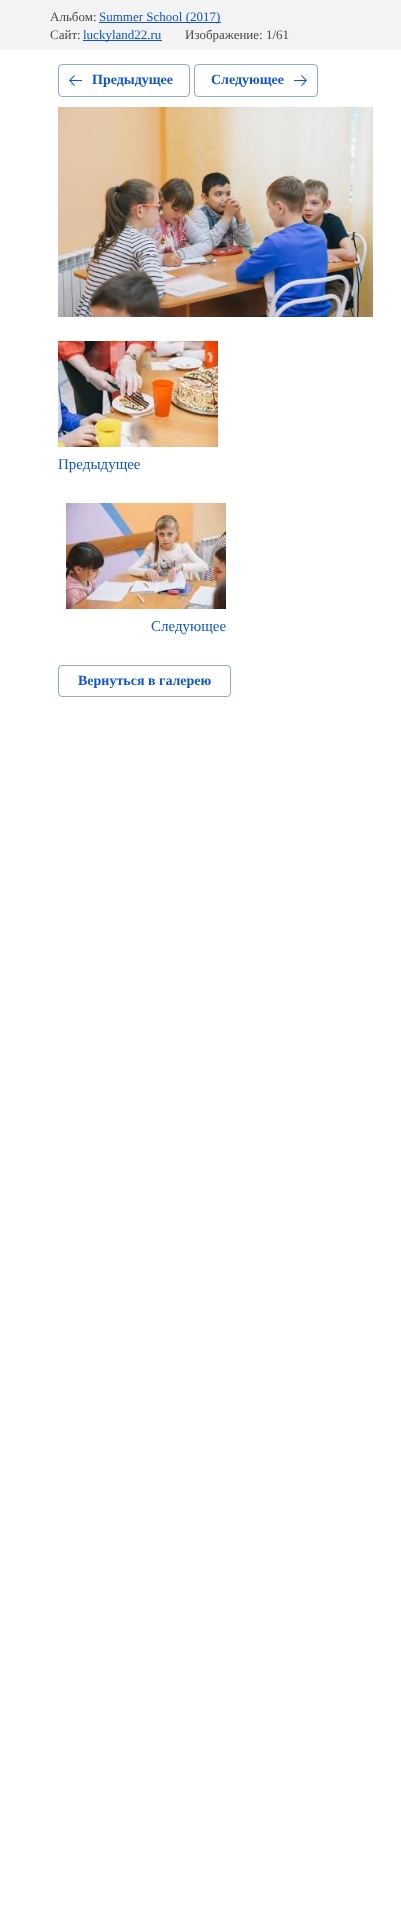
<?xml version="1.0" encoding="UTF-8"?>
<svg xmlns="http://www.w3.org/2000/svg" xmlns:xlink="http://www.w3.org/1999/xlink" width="401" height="1931">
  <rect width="100%" height="100%" fill="#ffffff" />
  <rect width="401" height="50" fill="#f3f3f3" />
  <rect x="99" y="22" width="122" height="1" fill="#1155cc" />
  <rect x="83" y="40" width="79" height="1" fill="#1155cc" />
  <rect x="58.5" y="64.5" width="131" height="32" rx="3.5" fill="none" stroke="#88aae6" />
  <image x="69" y="75" width="13" height="11" xlink:href="image1.png" />
  <rect x="194.5" y="64.5" width="123" height="32" rx="3.5" fill="none" stroke="#88aae6" />
  <image x="294" y="75" width="13" height="11" xlink:href="image2.png" />
  <image x="58" y="107" width="315" height="210" xlink:href="image3.png" />
  <image x="58" y="341" width="160" height="106" xlink:href="image4.png" />
  <image x="66" y="503" width="160" height="106" xlink:href="image5.png" />
  <rect x="58.5" y="665.5" width="172" height="31" rx="3.5" fill="none" stroke="#88aae6" />
  <text x="50" y="21" style="font-family: Liberation Serif; font-size: 13px; fill: #484848">Альбом:</text>
  <text x="99" y="21" style="font-family: Liberation Serif; font-size: 13px; fill: #1155cc">Summer School (2017)</text>
  <text x="50" y="39" style="font-family: Liberation Serif; font-size: 13px; fill: #484848">Сайт:</text>
  <text x="83" y="39" style="font-family: Liberation Serif; font-size: 13px; fill: #1155cc">luckyland22.ru</text>
  <text x="185" y="39" style="font-family: Liberation Serif; font-size: 13px; fill: #484848">Изображение: 1/61</text>
  <text x="92" y="84" style="font-family: Liberation Serif; font-size: 14px; font-weight: bold; fill: #1155cc">Предыдущее</text>
  <text x="211" y="84" style="font-family: Liberation Serif; font-size: 14px; font-weight: bold; fill: #1155cc">Следующее</text>
  <text x="58" y="469" style="font-family: Liberation Serif; font-size: 15px; fill: #1155cc">Предыдущее</text>
  <text x="151" y="631" style="font-family: Liberation Serif; font-size: 15px; fill: #1155cc">Следующее</text>
  <text x="78" y="685" style="font-family: Liberation Serif; font-size: 14px; font-weight: bold; fill: #1155cc">Вернуться в галерею</text>
</svg>
